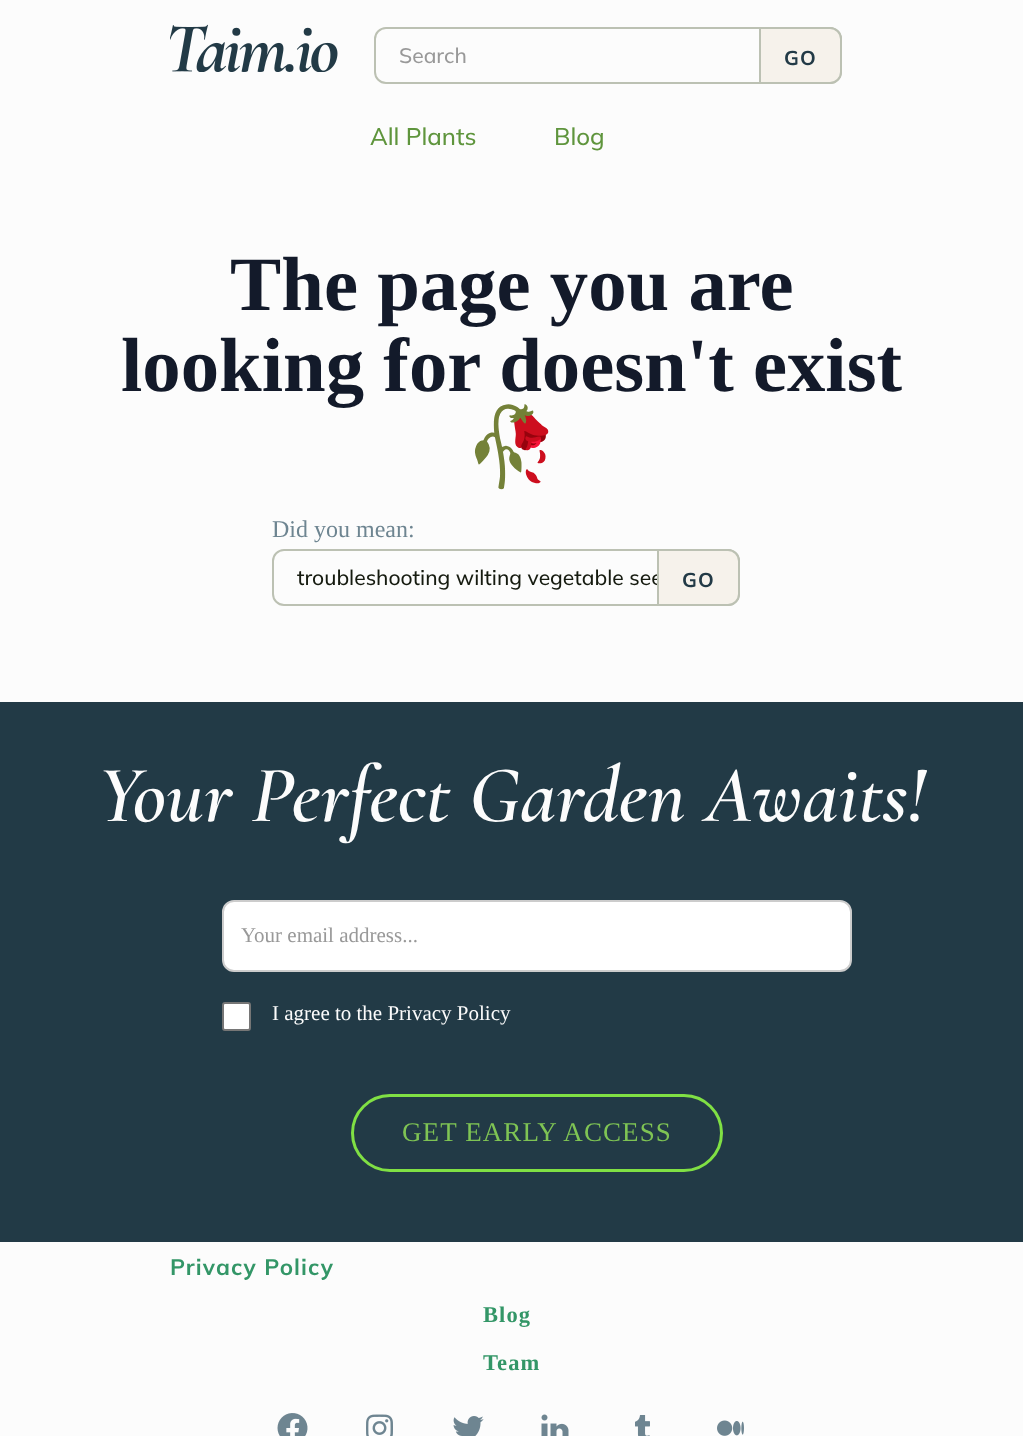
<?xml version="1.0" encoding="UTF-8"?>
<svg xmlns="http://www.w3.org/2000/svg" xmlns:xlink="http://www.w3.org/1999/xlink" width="1023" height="1436">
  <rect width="100%" height="100%" fill="#fcfcfc" />
  <image x="170" y="24" width="168" height="48" xlink:href="image1.png" />
  <rect x="375" y="28" width="466" height="55" rx="11" fill="none" stroke="#bcc1b3" stroke-width="2" />
  <path d="M 760 28 h 70 c 6 0 11 5 11 11 v 33 c 0 6 -5 11 -11 11 h -70 z" fill="#f6f2eb" stroke="#bcc1b3" stroke-width="2" />
  <rect x="273" y="550" width="466" height="55" rx="11" fill="none" stroke="#bcc1b3" stroke-width="2" />
  <rect y="702" width="1023" height="540" fill="#223a46" />
  <rect x="223" y="901" width="628" height="70" rx="11" fill="#ffffff" stroke="#cccccc" stroke-width="2" />
  <rect x="223" y="1003" width="27" height="27" rx="2" fill="#ffffff" stroke="#767676" stroke-width="2" />
  <rect x="352.5" y="1095.5" width="369" height="75" rx="37.5" fill="none" stroke="#80e044" stroke-width="3" />
  <image x="277" y="1413" width="31" height="23" xlink:href="image2.png" />
  <image x="366" y="1414" width="27" height="22" xlink:href="image3.png" />
  <image x="453" y="1416" width="31" height="20" xlink:href="image4.png" />
  <image x="541" y="1414" width="28" height="22" xlink:href="image5.png" />
  <image x="635" y="1415" width="15" height="21" xlink:href="image6.png" />
  <image x="717" y="1420" width="27" height="16" xlink:href="image7.png" />
  <text x="399" y="63" style="font-family: Mulish; font-size: 21px; font-weight: 500; fill: #999999">Search</text>
  <text x="784" y="65" style="font-family: Mulish; font-size: 20px; font-weight: bold; letter-spacing: 1.1px; fill: #223a46">GO</text>
  <text x="370" y="145" style="font-family: Mulish; font-size: 24px; font-weight: 500; fill: #5f953d">All Plants</text>
  <text x="554" y="145" style="font-family: Mulish; font-size: 24px; font-weight: 500; fill: #5f953d">Blog</text>
  <text x="230" y="310" style="font-family: Liberation Serif; font-size: 76.75px; font-weight: bold; fill: #131a2a">The page you are</text>
  <text x="121" y="391" style="font-family: Liberation Serif; font-size: 76.75px; font-weight: bold; fill: #131a2a">looking for doesn't exist</text>
  <text x="464" y="473" style="font-family: Noto Color Emoji; font-size: 76.75px; font-weight: bold; fill: #131a2a">🥀</text>
  <text x="272" y="537" style="font-family: Liberation Serif; font-size: 24px; fill: #6e8591">Did you mean:</text>
  <text x="297" y="585" style="font-family: Mulish; font-size: 21px; font-weight: 500; fill: #161b10">troubleshooting wilting vegetable see</text>
  <path d="M 658 550 h 70 c 6 0 11 5 11 11 v 33 c 0 6 -5 11 -11 11 h -70 z" fill="#f6f2eb" stroke="#bcc1b3" stroke-width="2" />
  <text x="682" y="587" style="font-family: Mulish; font-size: 20px; font-weight: bold; letter-spacing: 1.1px; fill: #223a46">GO</text>
  <text x="98" y="821" style="font-family: Cormorant Garamond; font-size: 81px; font-weight: 600; font-style: italic; fill: #fcfcfc">Your Perfect Garden Awaits!</text>
  <text x="241" y="942" style="font-family: Liberation Serif; font-size: 21px; fill: #999999">Your email address...</text>
  <text x="272" y="1020" style="font-family: Liberation Serif; font-size: 21px; fill: #fcfcfc">I agree to the Privacy Policy</text>
  <text x="402" y="1141" style="font-family: Liberation Serif; font-size: 27px; letter-spacing: 1.1px; fill: #7fc454">GET EARLY ACCESS</text>
  <text x="170" y="1275" style="font-family: Mulish; font-size: 22.5px; font-weight: bold; letter-spacing: 1.1px; fill: #339667">Privacy Policy</text>
  <text x="483" y="1322" style="font-family: Liberation Serif; font-size: 22.5px; font-weight: bold; letter-spacing: 1.1px; fill: #339667">Blog</text>
  <text x="483" y="1370" style="font-family: Liberation Serif; font-size: 22.5px; font-weight: bold; letter-spacing: 1.1px; fill: #339667">Team</text>
</svg>
